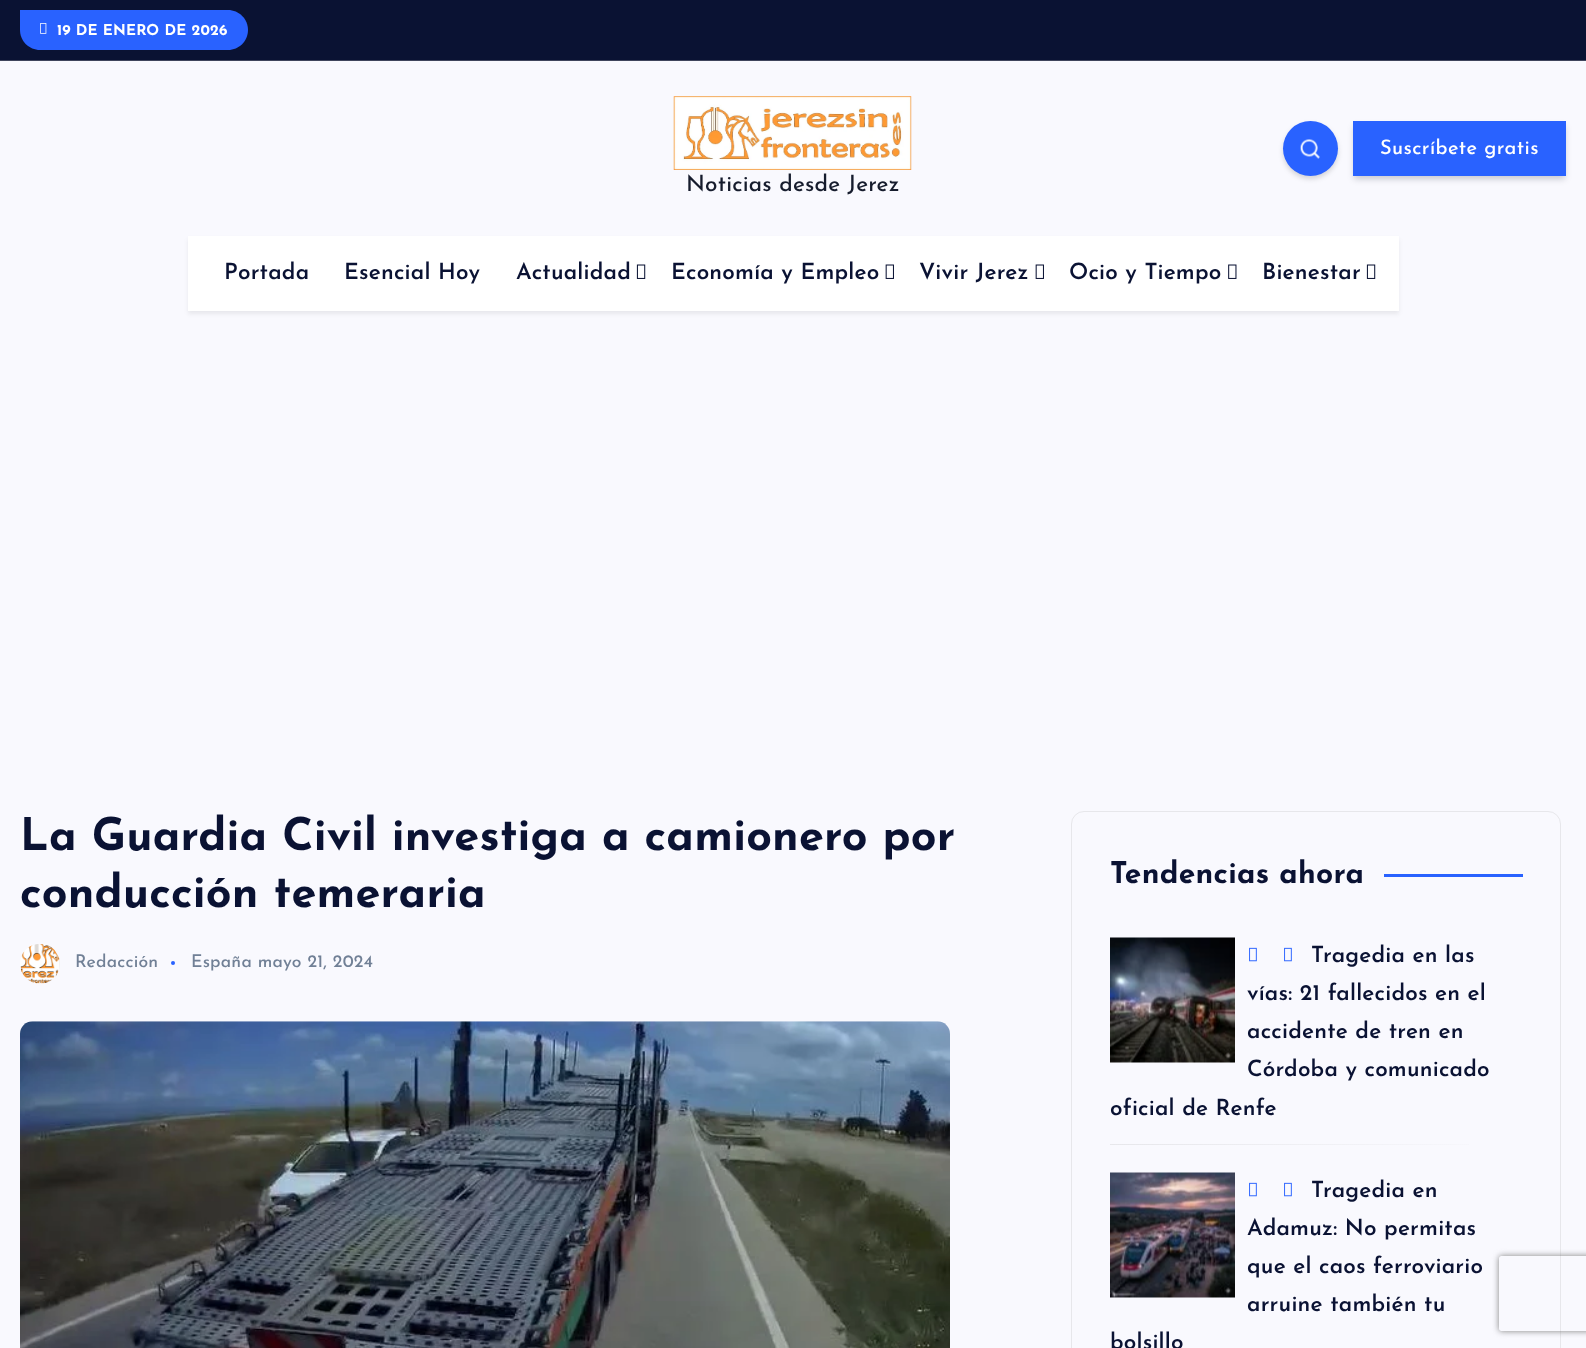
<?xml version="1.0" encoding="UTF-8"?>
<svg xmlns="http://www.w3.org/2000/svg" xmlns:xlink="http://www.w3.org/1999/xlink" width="1586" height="1348">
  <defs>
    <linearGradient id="g1" gradientUnits="userSpaceOnUse" x1="1110" y1="1144" x2="1523" y2="1144"><stop offset="0" stop-color="#e7e7eb" /><stop offset="1" stop-color="#f9f9fe" /></linearGradient>
    <clipPath id="clip1"><path d="M 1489 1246 h 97 v 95 h -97 z m 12.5 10 h 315 c 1.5 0 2.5 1 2.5 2.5 v 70 c 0 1.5 -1 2.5 -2.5 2.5 h -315 c -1.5 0 -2.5 -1 -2.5 -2.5 v -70 c 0 -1.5 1 -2.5 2.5 -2.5 z" clip-rule="evenodd" /></clipPath>
  </defs>
  <rect width="100%" height="100%" fill="#f9f9fe" />
  <rect width="1586" height="60" fill="#0a1233" />
  <rect y="60" width="1586" height="1" fill="#40455c" />
  <path d="M 20 10 h 208 c 11 0 20 9 20 20 c 0 11 -9 20 -20 20 h -188 c -11 0 -20 -9 -20 -20 z" fill="#2962ff" />
  <image x="40" y="23" width="7" height="11" xlink:href="image1.png" />
  <rect x="1283" y="124" width="55" height="55" rx="27.5" fill="#000000" fill-opacity="0.15" filter="blur(2.5px)" />
  <circle cx="1310.5" cy="148.5" r="27.5" fill="#2962ff" />
  <image x="1300" y="139" width="20" height="20" xlink:href="image2.png" />
  <rect x="1354" y="126" width="211" height="53" fill="#070a19" fill-opacity="0.2" filter="blur(3px)" />
  <rect x="1353" y="121" width="213" height="55" fill="#2962ff" />
  <image x="673" y="96" width="239" height="74" xlink:href="image3.png" />
  <rect x="188" y="239" width="1211" height="75" fill="#000000" fill-opacity="0.07" filter="blur(2px)" />
  <rect x="188" y="236" width="1211" height="75" fill="#ffffff" />
  <image x="636" y="264" width="10" height="15" xlink:href="image4.png" />
  <image x="885" y="264" width="9" height="15" xlink:href="image5.png" />
  <image x="1035" y="264" width="9" height="15" xlink:href="image5.png" />
  <image x="1228" y="264" width="9" height="15" xlink:href="image6.png" />
  <image x="1366" y="264" width="10" height="15" xlink:href="image4.png" />
  <image x="20" y="944" width="40" height="40" xlink:href="image7.png" />
  <circle cx="173" cy="963" r="2" fill="#2962ff" />
  <image x="20" y="1021" width="930" height="327" xlink:href="image8.png" />
  <rect x="1071.5" y="811.5" width="489" height="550" rx="12.5" fill="none" stroke="#e7e7eb" />
  <rect x="1384" y="874" width="139" height="3" fill="#2962ff" />
  <image x="1110" y="937" width="125" height="126" xlink:href="image9.png" />
  <image x="1249" y="947" width="8" height="15" xlink:href="image10.png" />
  <image x="1284" y="947" width="8" height="15" xlink:href="image10.png" />
  <rect x="1110" y="1144" width="359" height="1" fill="url(#g1)" />
  <image x="1110" y="1172" width="125" height="126" xlink:href="image11.png" />
  <image x="1249" y="1182" width="8" height="15" xlink:href="image10.png" />
  <image x="1284" y="1182" width="8" height="15" xlink:href="image10.png" />
  <g clip-path="url(#clip1)">
    <rect x="1499" y="1256" width="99" height="75" rx="2.5" fill="#808080" filter="blur(3px)" />
  </g>
  <text x="57" y="35" style="font-family: Josefin Sans; font-size: 15px; font-weight: bold; letter-spacing: 0.2px; fill: #ffffff">19 DE ENERO DE 2026</text>
  <text x="1380" y="154" style="font-family: Josefin Sans; font-size: 20px; font-weight: 500; letter-spacing: 0.4px; fill: #ffffff">Suscríbete gratis</text>
  <text x="686" y="191" style="font-family: Josefin Sans; font-size: 22.5px; font-weight: 500; letter-spacing: 0.2px; fill: #161c2d">Noticias desde Jerez</text>
  <text x="224" y="279" style="font-family: Josefin Sans; font-size: 22.5px; font-weight: 600; letter-spacing: 0.2px; fill: #0a1233">Portada</text>
  <text x="344" y="279" style="font-family: Josefin Sans; font-size: 22.5px; font-weight: 600; letter-spacing: 0.2px; fill: #0a1233">Esencial Hoy</text>
  <text x="516" y="279" style="font-family: Josefin Sans; font-size: 22.5px; font-weight: 600; letter-spacing: 0.2px; fill: #0a1233">Actualidad</text>
  <text x="671" y="279" style="font-family: Josefin Sans; font-size: 22.5px; font-weight: 600; letter-spacing: 0.2px; fill: #0a1233">Economía y Empleo</text>
  <text x="919" y="279" style="font-family: Josefin Sans; font-size: 22.5px; font-weight: 600; letter-spacing: 0.2px; fill: #0a1233">Vivir Jerez</text>
  <text x="1069" y="279" style="font-family: Josefin Sans; font-size: 22.5px; font-weight: 600; letter-spacing: 0.2px; fill: #0a1233">Ocio y Tiempo</text>
  <text x="1262" y="279" style="font-family: Josefin Sans; font-size: 22.5px; font-weight: 600; letter-spacing: 0.2px; fill: #0a1233">Bienestar</text>
  <text x="20" y="850" style="font-family: Josefin Sans; font-size: 45px; font-weight: bold; letter-spacing: 0.2px; fill: #0a1233">La Guardia Civil investiga a camionero por</text>
  <text x="20" y="907" style="font-family: Josefin Sans; font-size: 45px; font-weight: bold; letter-spacing: 0.2px; fill: #0a1233">conducción temeraria</text>
  <text x="75" y="967" style="font-family: Josefin Sans; font-size: 17.5px; font-weight: 500; letter-spacing: 0.2px; fill: #718096">Redacción</text>
  <text x="191" y="967" style="font-family: Josefin Sans; font-size: 17.5px; font-weight: 500; letter-spacing: 0.2px; fill: #718096">España mayo 21, 2024</text>
  <text x="1110" y="883" style="font-family: Josefin Sans; font-size: 30px; font-weight: bold; letter-spacing: 0.25px; fill: #0a1233">Tendencias ahora</text>
  <text x="1311" y="962" style="font-family: Josefin Sans; font-size: 22.5px; font-weight: 600; letter-spacing: 0.2px; fill: #0a1233">Tragedia en las</text>
  <text x="1247" y="1000" style="font-family: Josefin Sans; font-size: 22.5px; font-weight: 600; letter-spacing: 0.2px; fill: #0a1233">vías: 21 fallecidos en el</text>
  <text x="1247" y="1038" style="font-family: Josefin Sans; font-size: 22.5px; font-weight: 600; letter-spacing: 0.2px; fill: #0a1233">accidente de tren en</text>
  <text x="1247" y="1076" style="font-family: Josefin Sans; font-size: 22.5px; font-weight: 600; letter-spacing: 0.2px; fill: #0a1233">Córdoba y comunicado</text>
  <text x="1110" y="1115" style="font-family: Josefin Sans; font-size: 22.5px; font-weight: 600; letter-spacing: 0.2px; fill: #0a1233">oficial de Renfe</text>
  <text x="1311" y="1197" style="font-family: Josefin Sans; font-size: 22.5px; font-weight: 600; letter-spacing: 0.2px; fill: #0a1233">Tragedia en</text>
  <text x="1247" y="1235" style="font-family: Josefin Sans; font-size: 22.5px; font-weight: 600; letter-spacing: 0.2px; fill: #0a1233">Adamuz: No permitas</text>
  <text x="1247" y="1273" style="font-family: Josefin Sans; font-size: 22.5px; font-weight: 600; letter-spacing: 0.2px; fill: #0a1233">que el caos ferroviario</text>
  <text x="1247" y="1311" style="font-family: Josefin Sans; font-size: 22.5px; font-weight: 600; letter-spacing: 0.2px; fill: #0a1233">arruine también tu</text>
  <text x="1110" y="1349" style="font-family: Josefin Sans; font-size: 22.5px; font-weight: 600; letter-spacing: 0.2px; fill: #0a1233">bolsillo</text>
</svg>
